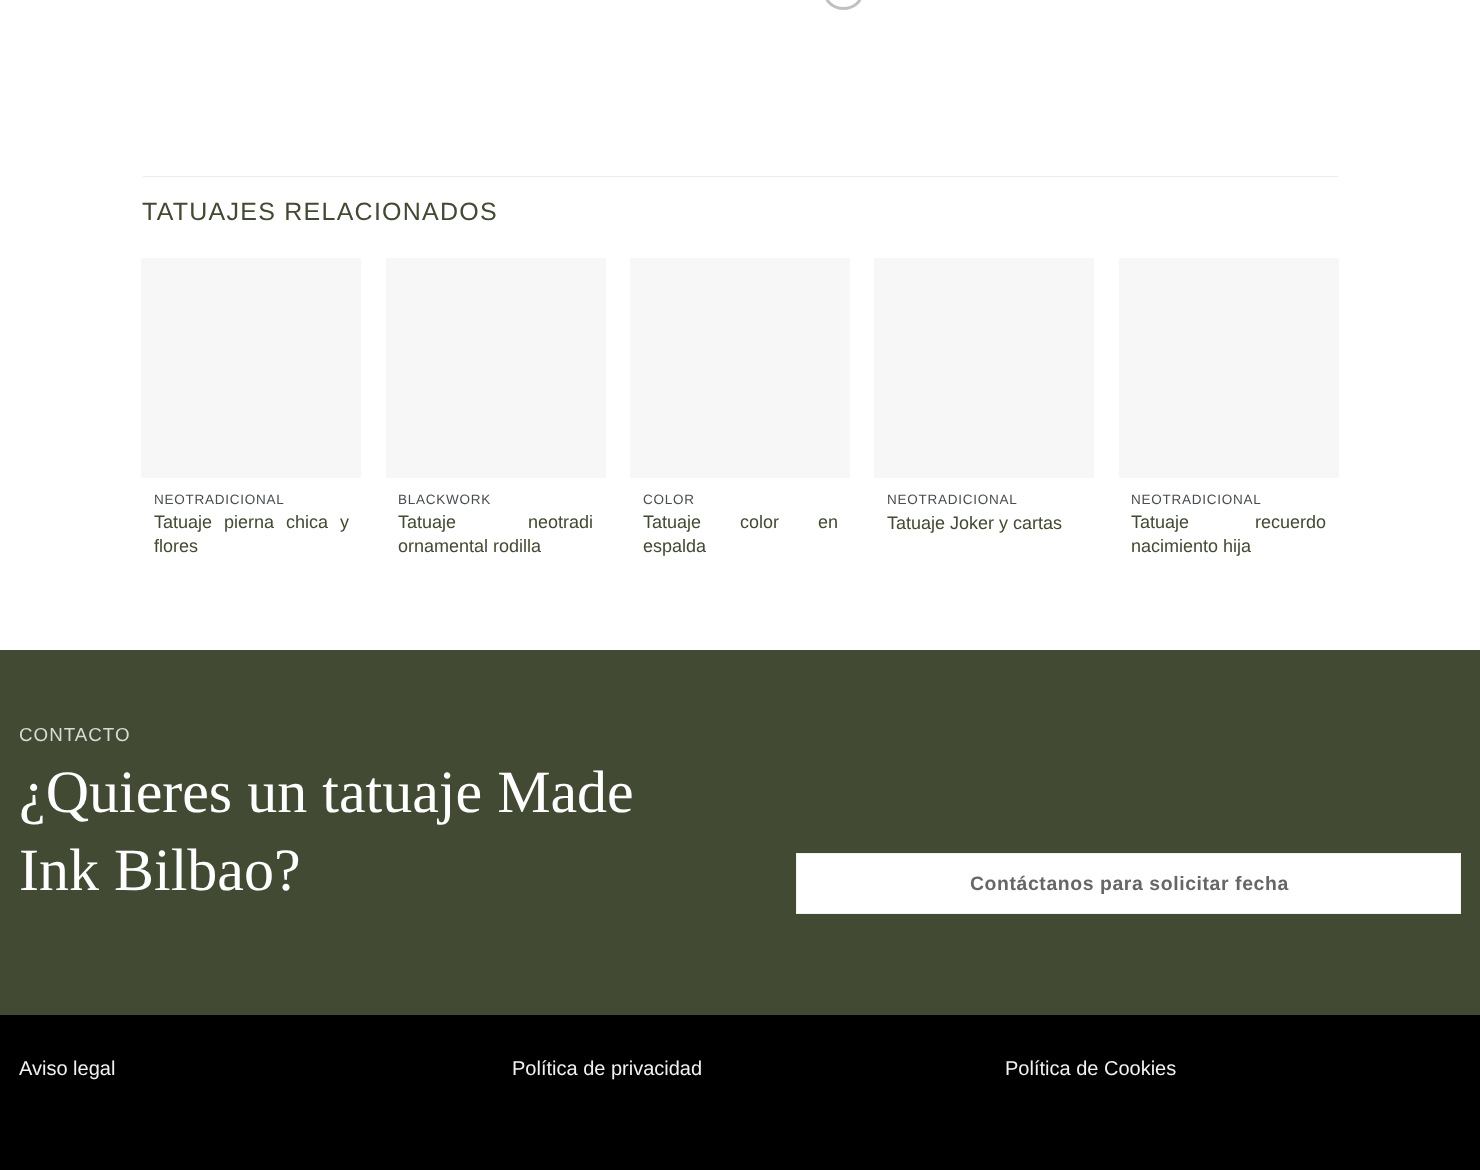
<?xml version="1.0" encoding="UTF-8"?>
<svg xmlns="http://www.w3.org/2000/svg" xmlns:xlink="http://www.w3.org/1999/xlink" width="1480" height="1170">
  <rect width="100%" height="100%" fill="#ffffff" />
  <rect x="825.5" y="-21.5" width="36" height="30" rx="18" fill="none" stroke="#c0c0c0" stroke-width="3" />
  <rect x="143" y="176" width="1195" height="1" fill="#ececec" />
  <rect x="141" y="258" width="220" height="220" fill="#f7f7f7" />
  <rect x="386" y="258" width="220" height="220" fill="#f7f7f7" />
  <rect x="630" y="258" width="220" height="220" fill="#f7f7f7" />
  <rect x="874" y="258" width="220" height="220" fill="#f7f7f7" />
  <rect x="1119" y="258" width="220" height="220" fill="#f7f7f7" />
  <rect y="650" width="1480" height="365" fill="#424a33" />
  <rect x="796.5" y="853.5" width="664" height="60" fill="#ffffff" stroke="#f2f2f2" />
  <rect y="1015" width="1480" height="155" fill="#000000" />
  <text x="142" y="220" style="font-family: Liberation Sans; font-size: 25px; letter-spacing: 1.25px; fill: #424a33">TATUAJES RELACIONADOS</text>
  <text x="154" y="504" style="font-family: Liberation Sans; font-size: 13.5px; letter-spacing: 0.75px; fill: #484d51">NEOTRADICIONAL</text>
  <text x="154" y="528" word-spacing="7" style="font-family: Liberation Sans; font-size: 18px; fill: #424a33">Tatuaje pierna chica y</text>
  <text x="154" y="552" style="font-family: Liberation Sans; font-size: 18px; fill: #424a33">flores</text>
  <text x="398" y="504" style="font-family: Liberation Sans; font-size: 13.5px; letter-spacing: 0.75px; fill: #484d51">BLACKWORK</text>
  <text x="398" y="528" word-spacing="67" style="font-family: Liberation Sans; font-size: 18px; fill: #424a33">Tatuaje neotradi</text>
  <text x="398" y="552" style="font-family: Liberation Sans; font-size: 18px; fill: #424a33">ornamental rodilla</text>
  <text x="643" y="504" style="font-family: Liberation Sans; font-size: 13.5px; letter-spacing: 0.75px; fill: #484d51">COLOR</text>
  <text x="643" y="528" word-spacing="34" style="font-family: Liberation Sans; font-size: 18px; fill: #424a33">Tatuaje color en</text>
  <text x="643" y="552" style="font-family: Liberation Sans; font-size: 18px; fill: #424a33">espalda</text>
  <text x="887" y="504" style="font-family: Liberation Sans; font-size: 13.5px; letter-spacing: 0.75px; fill: #484d51">NEOTRADICIONAL</text>
  <text x="887" y="529" style="font-family: Liberation Sans; font-size: 18px; fill: #424a33">Tatuaje Joker y cartas</text>
  <text x="1131" y="504" style="font-family: Liberation Sans; font-size: 13.5px; letter-spacing: 0.75px; fill: #484d51">NEOTRADICIONAL</text>
  <text x="1131" y="528" word-spacing="61" style="font-family: Liberation Sans; font-size: 18px; fill: #424a33">Tatuaje recuerdo</text>
  <text x="1131" y="552" style="font-family: Liberation Sans; font-size: 18px; fill: #424a33">nacimiento hija</text>
  <text x="19" y="741" style="font-family: Liberation Sans; font-size: 18.75px; letter-spacing: 1px; fill: #d9dbd6">CONTACTO</text>
  <text x="19" y="812" style="font-family: Liberation Serif; font-size: 60px; fill: #ffffff">¿Quieres un tatuaje Made</text>
  <text x="19" y="890" style="font-family: Liberation Serif; font-size: 60px; fill: #ffffff">Ink Bilbao?</text>
  <text x="970" y="890" style="font-family: Liberation Sans; font-size: 19.4px; font-weight: bold; letter-spacing: 0.6px; fill: #666666">Contáctanos para solicitar fecha</text>
  <text x="19" y="1075" style="font-family: Liberation Sans; font-size: 20px; fill: #f1f1f1">Aviso legal</text>
  <text x="512" y="1075" style="font-family: Liberation Sans; font-size: 20px; fill: #f1f1f1">Política de privacidad</text>
  <text x="1005" y="1075" style="font-family: Liberation Sans; font-size: 20px; fill: #f1f1f1">Política de Cookies</text>
</svg>
